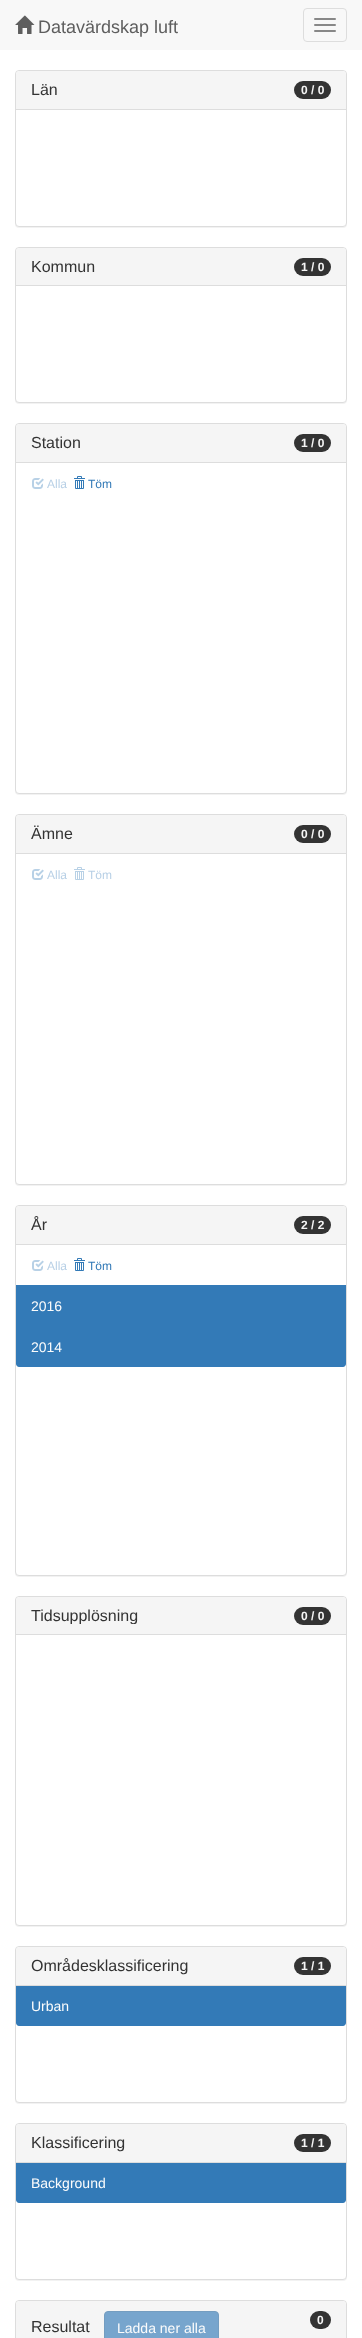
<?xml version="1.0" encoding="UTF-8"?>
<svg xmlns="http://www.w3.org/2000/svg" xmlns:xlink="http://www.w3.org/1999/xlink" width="362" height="2338">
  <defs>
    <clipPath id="clip1"><rect x="31" y="1607" width="263" height="17" /></clipPath>
  </defs>
  <rect width="100%" height="100%" fill="#ffffff" />
  <rect width="362" height="50" fill="#f8f8f8" />
  <image x="15" y="15" width="20" height="19" xlink:href="image1.png" />
  <rect x="303.5" y="8.5" width="43" height="33" rx="3.5" fill="none" stroke="#dddddd" />
  <rect x="314" y="18" width="22" height="2" rx="1" fill="#888888" />
  <rect x="314" y="24" width="22" height="2" rx="1" fill="#888888" />
  <rect x="314" y="30" width="22" height="2" rx="1" fill="#888888" />
  <rect x="15" y="71" width="332" height="157" rx="4" fill="#000000" fill-opacity="0.05" filter="blur(0.5px)" />
  <rect x="15.5" y="70.5" width="331" height="156" rx="3.5" fill="#ffffff" stroke="#dddddd" />
  <path d="M 19 71 h 324 c 1.5 0 3 1.5 3 3 v 36 h -330 v -36 c 0 -1.5 1.5 -3 3 -3 z" fill="#f5f5f5" />
  <rect x="16" y="109" width="330" height="1" fill="#dddddd" />
  <rect x="294" y="81" width="37" height="18" rx="9" fill="#333333" />
  <rect x="15" y="248" width="332" height="156" rx="4" fill="#000000" fill-opacity="0.05" filter="blur(0.5px)" />
  <rect x="15.5" y="247.5" width="331" height="155" rx="3.5" fill="#ffffff" stroke="#dddddd" />
  <path d="M 19 248 h 324 c 1.5 0 3 1.5 3 3 v 35 h -330 v -35 c 0 -1.5 1.5 -3 3 -3 z" fill="#f5f5f5" />
  <rect x="16" y="285" width="330" height="1" fill="#dddddd" />
  <rect x="294" y="258" width="37" height="18" rx="9" fill="#333333" />
  <rect x="15" y="424" width="332" height="371" rx="4" fill="#000000" fill-opacity="0.05" filter="blur(0.5px)" />
  <rect x="15.5" y="423.5" width="331" height="370" rx="3.5" fill="#ffffff" stroke="#dddddd" />
  <path d="M 19 424 h 324 c 1.5 0 3 1.5 3 3 v 36 h -330 v -36 c 0 -1.5 1.5 -3 3 -3 z" fill="#f5f5f5" />
  <rect x="16" y="462" width="330" height="1" fill="#dddddd" />
  <rect x="294" y="434" width="37" height="18" rx="9" fill="#333333" />
  <image x="32" y="478" width="12" height="11" xlink:href="image2.png" />
  <image x="74" y="476" width="11" height="13" xlink:href="image3.png" />
  <rect x="15" y="815" width="332" height="371" rx="4" fill="#000000" fill-opacity="0.05" filter="blur(0.5px)" />
  <rect x="15.5" y="814.5" width="331" height="370" rx="3.5" fill="#ffffff" stroke="#dddddd" />
  <path d="M 19 815 h 324 c 1.5 0 3 1.5 3 3 v 36 h -330 v -36 c 0 -1.5 1.5 -3 3 -3 z" fill="#f5f5f5" />
  <rect x="16" y="853" width="330" height="1" fill="#dddddd" />
  <rect x="294" y="825" width="37" height="18" rx="9" fill="#333333" />
  <image x="32" y="869" width="12" height="11" xlink:href="image2.png" />
  <image x="74" y="867" width="11" height="13" xlink:href="image4.png" />
  <rect x="15" y="1206" width="332" height="371" rx="4" fill="#000000" fill-opacity="0.05" filter="blur(0.5px)" />
  <rect x="15.5" y="1205.5" width="331" height="370" rx="3.5" fill="#ffffff" stroke="#dddddd" />
  <path d="M 19 1206 h 324 c 1.5 0 3 1.5 3 3 v 36 h -330 v -36 c 0 -1.5 1.5 -3 3 -3 z" fill="#f5f5f5" />
  <rect x="16" y="1244" width="330" height="1" fill="#dddddd" />
  <rect x="294" y="1216" width="37" height="18" rx="9" fill="#333333" />
  <image x="32" y="1260" width="12" height="11" xlink:href="image2.png" />
  <image x="74" y="1258" width="11" height="13" xlink:href="image3.png" />
  <rect x="16" y="1285" width="330" height="41" fill="#337ab7" />
  <path d="M 16 1326 h 330 v 38 c 0 1.5 -1.5 3 -3 3 h -324 c -1.5 0 -3 -1.5 -3 -3 z" fill="#337ab7" />
  <rect x="15" y="1597" width="332" height="330" rx="4" fill="#000000" fill-opacity="0.05" filter="blur(0.5px)" />
  <rect x="15.5" y="1596.5" width="331" height="329" rx="3.5" fill="#ffffff" stroke="#dddddd" />
  <path d="M 19 1597 h 324 c 1.5 0 3 1.5 3 3 v 35 h -330 v -35 c 0 -1.5 1.5 -3 3 -3 z" fill="#f5f5f5" />
  <rect x="16" y="1634" width="330" height="1" fill="#dddddd" />
  <rect x="294" y="1607" width="37" height="18" rx="9" fill="#333333" />
  <rect x="15" y="1947" width="332" height="157" rx="4" fill="#000000" fill-opacity="0.05" filter="blur(0.5px)" />
  <rect x="15.5" y="1946.5" width="331" height="156" rx="3.5" fill="#ffffff" stroke="#dddddd" />
  <path d="M 19 1947 h 324 c 1.5 0 3 1.5 3 3 v 36 h -330 v -36 c 0 -1.5 1.5 -3 3 -3 z" fill="#f5f5f5" />
  <rect x="16" y="1985" width="330" height="1" fill="#dddddd" />
  <rect x="294" y="1957" width="37" height="18" rx="9" fill="#333333" />
  <path d="M 16 1986 h 330 v 37 c 0 1.5 -1.5 3 -3 3 h -324 c -1.5 0 -3 -1.5 -3 -3 z" fill="#337ab7" />
  <rect x="15" y="2124" width="332" height="157" rx="4" fill="#000000" fill-opacity="0.05" filter="blur(0.5px)" />
  <rect x="15.5" y="2123.5" width="331" height="156" rx="3.5" fill="#ffffff" stroke="#dddddd" />
  <path d="M 19 2124 h 324 c 1.5 0 3 1.5 3 3 v 36 h -330 v -36 c 0 -1.5 1.5 -3 3 -3 z" fill="#f5f5f5" />
  <rect x="16" y="2162" width="330" height="1" fill="#dddddd" />
  <rect x="294" y="2134" width="37" height="18" rx="9" fill="#333333" />
  <path d="M 16 2163 h 330 v 37 c 0 1.5 -1.5 3 -3 3 h -324 c -1.5 0 -3 -1.5 -3 -3 z" fill="#337ab7" />
  <rect x="15.5" y="2300.5" width="331" height="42" rx="3.5" fill="none" stroke="#dddddd" />
  <path d="M 19 2301 h 324 c 1.5 0 3 1.5 3 3 v 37 h -330 v -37 c 0 -1.5 1.5 -3 3 -3 z" fill="#f5f5f5" />
  <rect x="104.5" y="2311.5" width="114" height="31" rx="3.5" fill="#77a5cd" stroke="#749dc0" />
  <rect x="310" y="2311" width="21" height="18" rx="9" fill="#333333" />
  <text x="38" y="33" style="font-family: Liberation Sans; font-size: 18px; fill: #5e5e5e">Datavärdskap luft</text>
  <text x="31" y="95" style="font-family: Liberation Sans; font-size: 16px; fill: #333333">Län</text>
  <text x="301" y="94" style="font-family: Liberation Sans; font-size: 12px; font-weight: bold; fill: #f5f5f5">0 / 0</text>
  <text x="31" y="272" style="font-family: Liberation Sans; font-size: 16px; fill: #333333">Kommun</text>
  <text x="301" y="271" style="font-family: Liberation Sans; font-size: 12px; font-weight: bold; fill: #f5f5f5">1 / 0</text>
  <text x="31" y="448" style="font-family: Liberation Sans; font-size: 16px; fill: #333333">Station</text>
  <text x="301" y="447" style="font-family: Liberation Sans; font-size: 12px; font-weight: bold; fill: #f5f5f5">1 / 0</text>
  <text x="47" y="488" style="font-family: Liberation Sans; font-size: 12px; fill: #b8d0e6">Alla</text>
  <text x="88" y="488" style="font-family: Liberation Sans; font-size: 12px; fill: #337ab7">Töm</text>
  <text x="31" y="839" style="font-family: Liberation Sans; font-size: 16px; fill: #333333">Ämne</text>
  <text x="301" y="838" style="font-family: Liberation Sans; font-size: 12px; font-weight: bold; fill: #f5f5f5">0 / 0</text>
  <text x="47" y="879" style="font-family: Liberation Sans; font-size: 12px; fill: #b8d0e6">Alla</text>
  <text x="88" y="879" style="font-family: Liberation Sans; font-size: 12px; fill: #b8d0e6">Töm</text>
  <text x="31" y="1230" style="font-family: Liberation Sans; font-size: 16px; fill: #333333">År</text>
  <text x="301" y="1229" style="font-family: Liberation Sans; font-size: 12px; font-weight: bold; fill: #f5f5f5">2 / 2</text>
  <text x="47" y="1270" style="font-family: Liberation Sans; font-size: 12px; fill: #b8d0e6">Alla</text>
  <text x="88" y="1270" style="font-family: Liberation Sans; font-size: 12px; fill: #337ab7">Töm</text>
  <text x="31" y="1311" style="font-family: Liberation Sans; font-size: 14px; fill: #fcfcfc">2016</text>
  <text x="31" y="1352" style="font-family: Liberation Sans; font-size: 14px; fill: #fcfcfc">2014</text>
  <g clip-path="url(#clip1)">
    <text x="31" y="1621" style="font-family: Liberation Sans; font-size: 16px; fill: #333333">Tidsupplösning</text>
  </g>
  <text x="301" y="1620" style="font-family: Liberation Sans; font-size: 12px; font-weight: bold; fill: #f5f5f5">0 / 0</text>
  <text x="31" y="1971" style="font-family: Liberation Sans; font-size: 16px; fill: #333333">Områdesklassificering</text>
  <text x="301" y="1970" style="font-family: Liberation Sans; font-size: 12px; font-weight: bold; fill: #f5f5f5">1 / 1</text>
  <text x="31" y="2011" style="font-family: Liberation Sans; font-size: 14px; fill: #fcfcfc">Urban</text>
  <text x="31" y="2148" style="font-family: Liberation Sans; font-size: 16px; fill: #333333">Klassificering</text>
  <text x="301" y="2147" style="font-family: Liberation Sans; font-size: 12px; font-weight: bold; fill: #f5f5f5">1 / 1</text>
  <text x="31" y="2188" style="font-family: Liberation Sans; font-size: 14px; fill: #fcfcfc">Background</text>
  <text x="31" y="2332" style="font-family: Liberation Sans; font-size: 16px; fill: #333333">Resultat</text>
  <text x="117" y="2333" style="font-family: Liberation Sans; font-size: 14px; fill: #fcfcfc">Ladda ner alla</text>
  <text x="317" y="2324" style="font-family: Liberation Sans; font-size: 12px; font-weight: bold; fill: #f5f5f5">0</text>
</svg>
